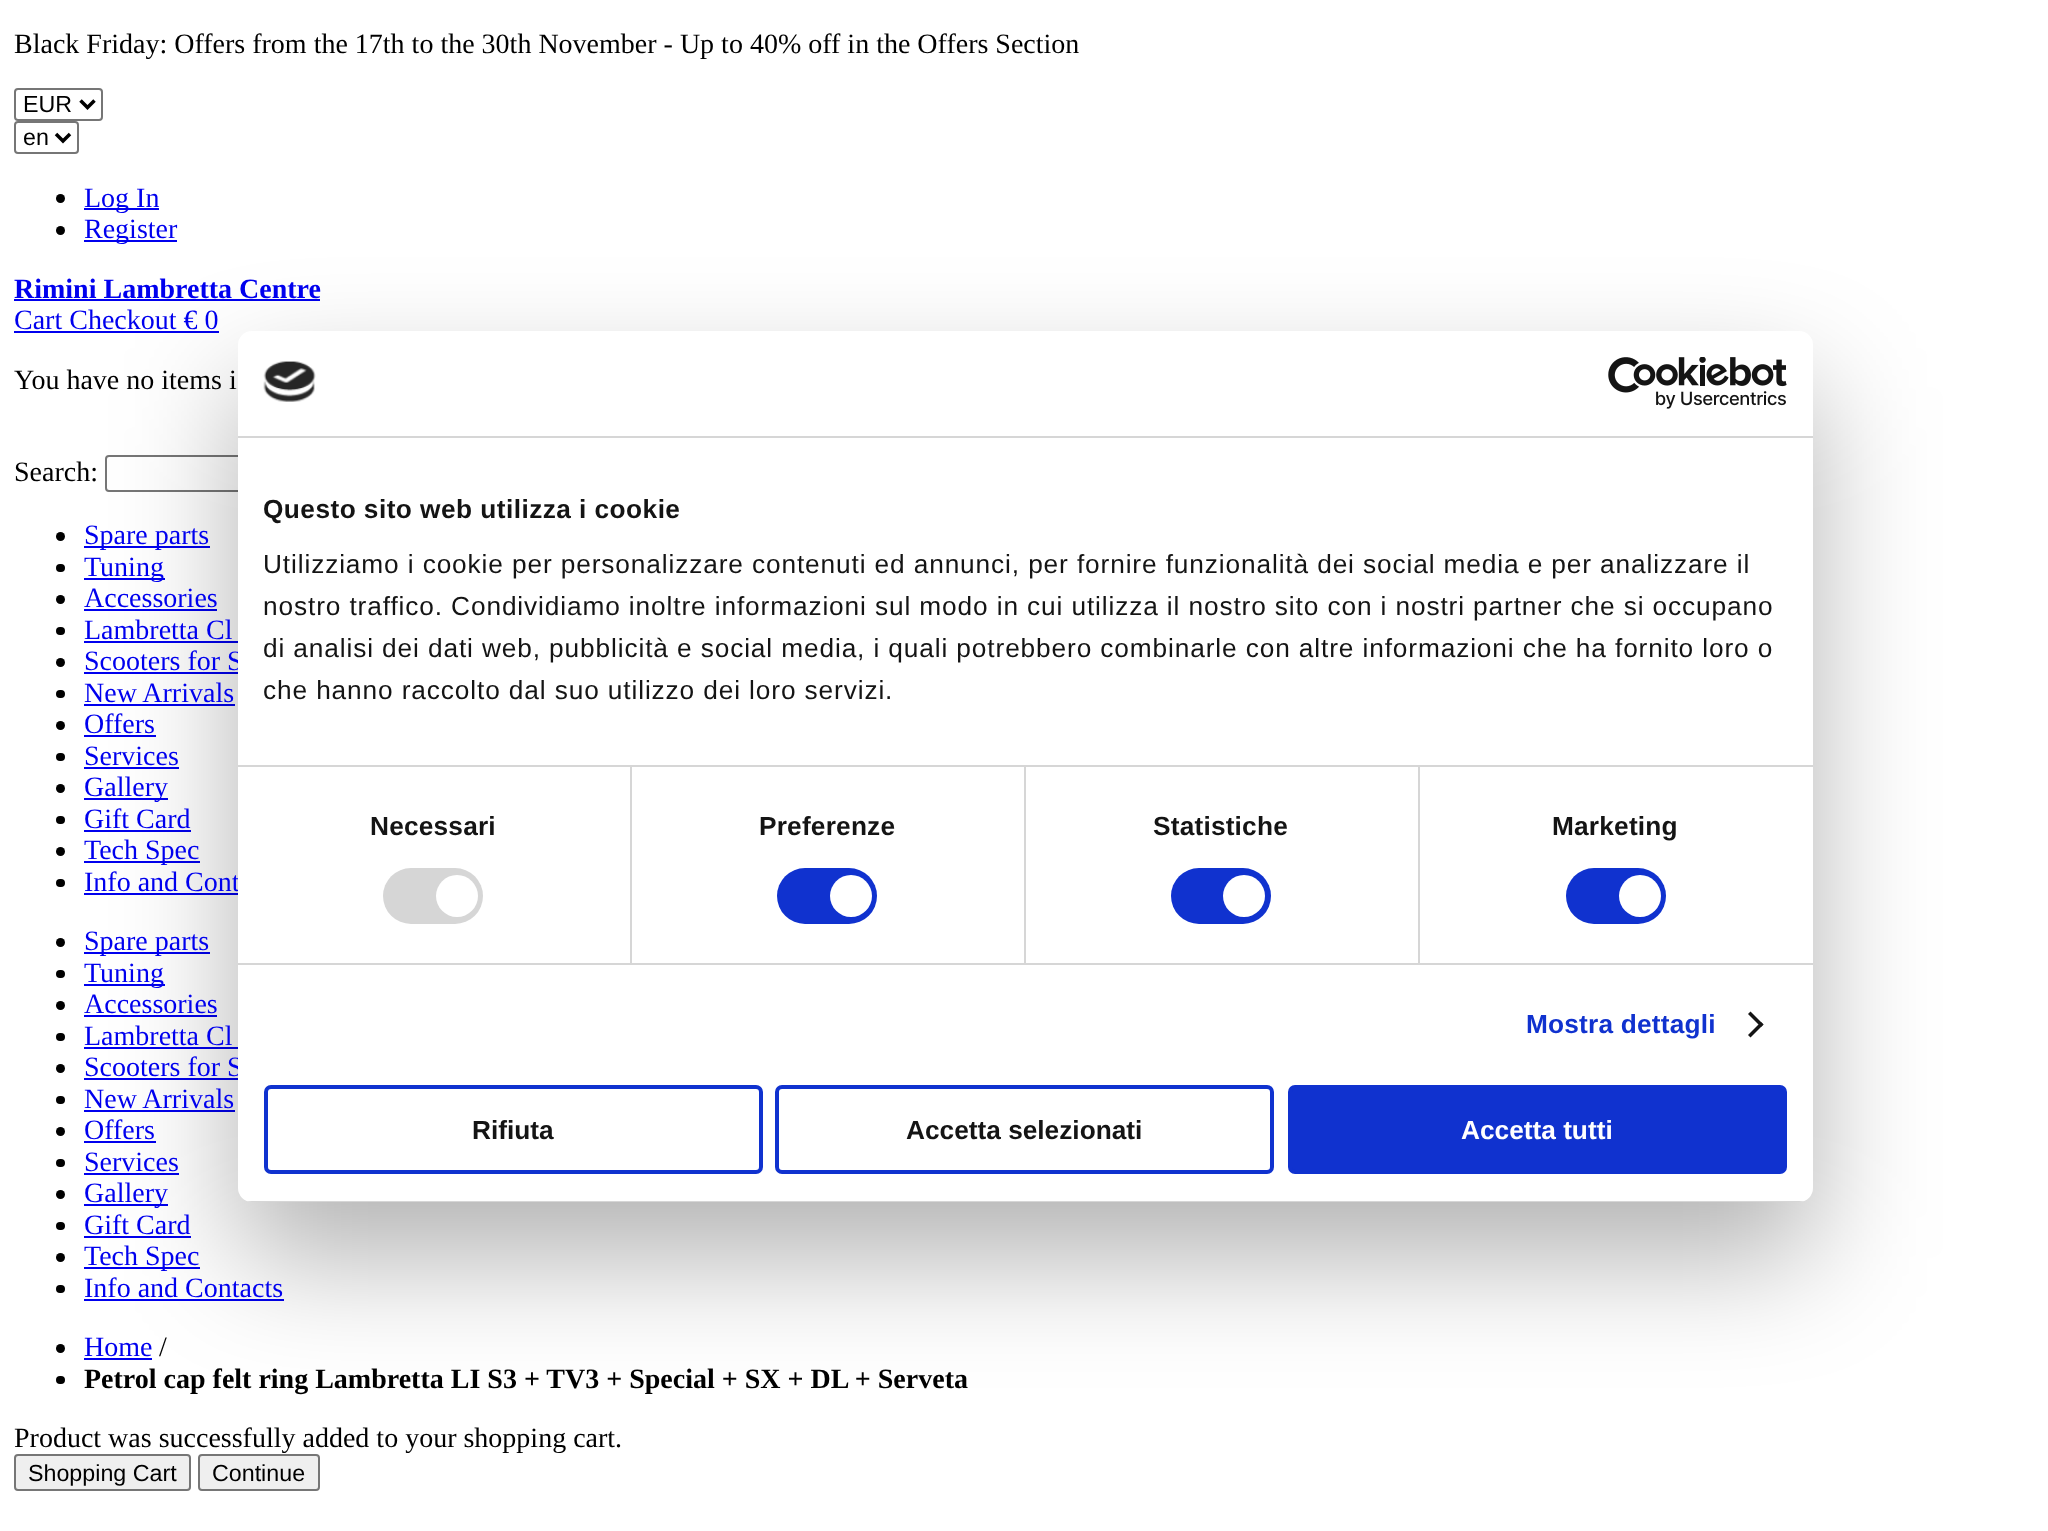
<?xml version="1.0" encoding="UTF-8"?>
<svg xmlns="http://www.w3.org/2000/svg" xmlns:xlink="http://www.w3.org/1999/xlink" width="2048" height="1531">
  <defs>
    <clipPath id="clip1"><rect x="238" y="331" width="1575" height="871" rx="14" /></clipPath>
  </defs>
  <rect width="100%" height="100%" fill="#ffffff" />
  <rect x="15" y="89" width="87" height="31" rx="3" fill="none" stroke="#767676" stroke-width="2" />
  <path d="M 80.5 100.5 l 7 7 l 7 -7" fill="none" stroke="#000000" stroke-width="3.5" />
  <rect x="15" y="122" width="63" height="31" rx="3" fill="none" stroke="#767676" stroke-width="2" />
  <path d="M 56 134 l 7 7 l 7 -7" fill="none" stroke="#000000" stroke-width="3.5" />
  <circle cx="60.5" cy="198.5" r="4.5" fill="#000000" />
  <rect x="84" y="208" width="75" height="2" fill="#0000ee" />
  <circle cx="60.5" cy="230.5" r="4.5" fill="#000000" />
  <rect x="84" y="240" width="93" height="2" fill="#0000ee" />
  <rect x="14" y="299" width="306" height="2" fill="#0000ee" />
  <rect x="14" y="331" width="205" height="2" fill="#0000ee" />
  <rect x="106" y="456" width="322" height="35" rx="3" fill="none" stroke="#767676" stroke-width="2" />
  <circle cx="60.5" cy="536.5" r="4.5" fill="#000000" />
  <rect x="84" y="546" width="126" height="2" fill="#0000ee" />
  <rect x="56" y="564" width="9" height="8" rx="4" fill="#000000" />
  <rect x="84" y="578" width="81" height="2" fill="#0000ee" />
  <circle cx="60.5" cy="599.5" r="4.5" fill="#000000" />
  <rect x="84" y="609" width="133" height="2" fill="#0000ee" />
  <rect x="56" y="627" width="9" height="8" rx="4" fill="#000000" />
  <rect x="84" y="641" width="154" height="2" fill="#0000ee" />
  <circle cx="60.5" cy="662.5" r="4.5" fill="#000000" />
  <rect x="84" y="672" width="154" height="2" fill="#0000ee" />
  <rect x="56" y="690" width="9" height="8" rx="4" fill="#000000" />
  <rect x="84" y="704" width="151" height="2" fill="#0000ee" />
  <circle cx="60.5" cy="725.5" r="4.5" fill="#000000" />
  <rect x="84" y="735" width="72" height="2" fill="#0000ee" />
  <rect x="56" y="753" width="9" height="8" rx="4" fill="#000000" />
  <rect x="84" y="767" width="95" height="2" fill="#0000ee" />
  <circle cx="60.5" cy="788.5" r="4.5" fill="#000000" />
  <rect x="84" y="798" width="84" height="2" fill="#0000ee" />
  <rect x="56" y="816" width="9" height="8" rx="4" fill="#000000" />
  <rect x="84" y="830" width="107" height="2" fill="#0000ee" />
  <circle cx="60.5" cy="851.5" r="4.5" fill="#000000" />
  <rect x="84" y="861" width="116" height="2" fill="#0000ee" />
  <rect x="56" y="879" width="9" height="8" rx="4" fill="#000000" />
  <rect x="84" y="893" width="154" height="2" fill="#0000ee" />
  <circle cx="60.5" cy="942.5" r="4.5" fill="#000000" />
  <rect x="84" y="952" width="126" height="2" fill="#0000ee" />
  <rect x="56" y="970" width="9" height="8" rx="4" fill="#000000" />
  <rect x="84" y="984" width="81" height="2" fill="#0000ee" />
  <circle cx="60.5" cy="1005.5" r="4.5" fill="#000000" />
  <rect x="84" y="1015" width="133" height="2" fill="#0000ee" />
  <rect x="56" y="1033" width="9" height="8" rx="4" fill="#000000" />
  <rect x="84" y="1047" width="154" height="2" fill="#0000ee" />
  <circle cx="60.5" cy="1068.5" r="4.5" fill="#000000" />
  <rect x="84" y="1078" width="154" height="2" fill="#0000ee" />
  <rect x="56" y="1096" width="9" height="8" rx="4" fill="#000000" />
  <rect x="84" y="1110" width="151" height="2" fill="#0000ee" />
  <circle cx="60.5" cy="1131.5" r="4.5" fill="#000000" />
  <rect x="84" y="1141" width="72" height="2" fill="#0000ee" />
  <rect x="56" y="1159" width="9" height="8" rx="4" fill="#000000" />
  <rect x="84" y="1173" width="95" height="2" fill="#0000ee" />
  <circle cx="60.5" cy="1194.5" r="4.5" fill="#000000" />
  <rect x="84" y="1204" width="84" height="2" fill="#0000ee" />
  <rect x="56" y="1222" width="9" height="8" rx="4" fill="#000000" />
  <rect x="84" y="1236" width="107" height="2" fill="#0000ee" />
  <circle cx="60.5" cy="1257.5" r="4.5" fill="#000000" />
  <rect x="84" y="1267" width="116" height="2" fill="#0000ee" />
  <rect x="56" y="1285" width="9" height="8" rx="4" fill="#000000" />
  <rect x="84" y="1299" width="200" height="2" fill="#0000ee" />
  <circle cx="60.5" cy="1348.5" r="4.5" fill="#000000" />
  <rect x="84" y="1358" width="68" height="2" fill="#0000ee" />
  <rect x="56" y="1376" width="9" height="8" rx="4" fill="#000000" />
  <rect x="15" y="1455" width="175" height="35" rx="3" fill="#efefef" stroke="#767676" stroke-width="2" />
  <rect x="199" y="1455" width="120" height="35" rx="3" fill="#efefef" stroke="#767676" stroke-width="2" />
  <rect x="238" y="387" width="1575" height="871" rx="14" fill="#000000" fill-opacity="0.3" filter="blur(59.5px)" />
  <text x="14" y="53" style="font-family: Liberation Serif; font-size: 28px; fill: #000000">Black Friday: Offers from the 17th to the 30th November - Up to 40% off in the Offers Section</text>
  <text x="23" y="112" style="font-family: Liberation Sans; font-size: 23.25px; fill: #000000">EUR</text>
  <text x="23" y="145" style="font-family: Liberation Sans; font-size: 23.25px; fill: #000000">en</text>
  <text x="84" y="207" style="font-family: Liberation Serif; font-size: 28px; fill: #0000ee">Log In</text>
  <text x="84" y="238" style="font-family: Liberation Serif; font-size: 28px; fill: #0000ee">Register</text>
  <text x="14" y="298" style="font-family: Liberation Serif; font-size: 28px; font-weight: bold; fill: #0000ee">Rimini Lambretta Centre</text>
  <text x="14" y="329" style="font-family: Liberation Serif; font-size: 28px; fill: #0000ee">Cart Checkout € 0</text>
  <text x="14" y="389" style="font-family: Liberation Serif; font-size: 28px; fill: #000000">You have no items i</text>
  <text x="14" y="481" style="font-family: Liberation Serif; font-size: 28px; fill: #000000">Search:</text>
  <text x="84" y="544" style="font-family: Liberation Serif; font-size: 28px; fill: #0000ee">Spare parts</text>
  <text x="84" y="576" style="font-family: Liberation Serif; font-size: 28px; fill: #0000ee">Tuning</text>
  <text x="84" y="607" style="font-family: Liberation Serif; font-size: 28px; fill: #0000ee">Accessories</text>
  <text x="84" y="639" style="font-family: Liberation Serif; font-size: 28px; fill: #0000ee">Lambretta Cl</text>
  <text x="84" y="670" style="font-family: Liberation Serif; font-size: 28px; fill: #0000ee">Scooters for S</text>
  <text x="84" y="702" style="font-family: Liberation Serif; font-size: 28px; fill: #0000ee">New Arrivals</text>
  <text x="84" y="733" style="font-family: Liberation Serif; font-size: 28px; fill: #0000ee">Offers</text>
  <text x="84" y="765" style="font-family: Liberation Serif; font-size: 28px; fill: #0000ee">Services</text>
  <text x="84" y="796" style="font-family: Liberation Serif; font-size: 28px; fill: #0000ee">Gallery</text>
  <text x="84" y="828" style="font-family: Liberation Serif; font-size: 28px; fill: #0000ee">Gift Card</text>
  <text x="84" y="859" style="font-family: Liberation Serif; font-size: 28px; fill: #0000ee">Tech Spec</text>
  <text x="84" y="891" style="font-family: Liberation Serif; font-size: 28px; fill: #0000ee">Info and Cont</text>
  <text x="84" y="950" style="font-family: Liberation Serif; font-size: 28px; fill: #0000ee">Spare parts</text>
  <text x="84" y="982" style="font-family: Liberation Serif; font-size: 28px; fill: #0000ee">Tuning</text>
  <text x="84" y="1013" style="font-family: Liberation Serif; font-size: 28px; fill: #0000ee">Accessories</text>
  <text x="84" y="1045" style="font-family: Liberation Serif; font-size: 28px; fill: #0000ee">Lambretta Cl</text>
  <text x="84" y="1076" style="font-family: Liberation Serif; font-size: 28px; fill: #0000ee">Scooters for S</text>
  <text x="84" y="1108" style="font-family: Liberation Serif; font-size: 28px; fill: #0000ee">New Arrivals</text>
  <text x="84" y="1139" style="font-family: Liberation Serif; font-size: 28px; fill: #0000ee">Offers</text>
  <text x="84" y="1171" style="font-family: Liberation Serif; font-size: 28px; fill: #0000ee">Services</text>
  <text x="84" y="1202" style="font-family: Liberation Serif; font-size: 28px; fill: #0000ee">Gallery</text>
  <text x="84" y="1234" style="font-family: Liberation Serif; font-size: 28px; fill: #0000ee">Gift Card</text>
  <text x="84" y="1265" style="font-family: Liberation Serif; font-size: 28px; fill: #0000ee">Tech Spec</text>
  <text x="84" y="1297" style="font-family: Liberation Serif; font-size: 28px; fill: #0000ee">Info and Contacts</text>
  <text x="84" y="1356" style="font-family: Liberation Serif; font-size: 28px; fill: #0000ee">Home</text>
  <text x="159" y="1356" style="font-family: Liberation Serif; font-size: 28px; fill: #000000">/</text>
  <text x="84" y="1388" style="font-family: Liberation Serif; font-size: 28px; font-weight: bold; fill: #000000">Petrol cap felt ring Lambretta LI S3 + TV3 + Special + SX + DL + Serveta</text>
  <text x="14" y="1447" style="font-family: Liberation Serif; font-size: 28px; fill: #000000">Product was successfully added to your shopping cart.</text>
  <text x="28" y="1481" style="font-family: Liberation Sans; font-size: 23.25px; fill: #000000">Shopping Cart</text>
  <text x="212" y="1481" style="font-family: Liberation Sans; font-size: 23.25px; fill: #000000">Continue</text>
  <rect x="238" y="331" width="1575" height="871" rx="14" fill="#ffffff" />
  <rect x="238" y="436" width="1575" height="2" fill="#d6d6d6" />
  <image x="263" y="361" width="53" height="41" xlink:href="image1.png" />
  <image x="1608" y="357" width="179" height="52" xlink:href="image2.png" />
  <rect x="238" y="765" width="1575" height="2" fill="#d6d6d6" />
  <text x="263" y="518" style="font-family: Liberation Sans; font-size: 26.25px; font-weight: bold; letter-spacing: 0.45px; fill: #141414">Questo sito web utilizza i cookie</text>
  <text x="263" y="573" style="font-family: Liberation Sans; font-size: 26.25px; letter-spacing: 0.88px; fill: #141414">Utilizziamo i cookie per personalizzare contenuti ed annunci, per fornire funzionalità dei social media e per analizzare il</text>
  <text x="263" y="615" style="font-family: Liberation Sans; font-size: 26.25px; letter-spacing: 0.88px; fill: #141414">nostro traffico. Condividiamo inoltre informazioni sul modo in cui utilizza il nostro sito con i nostri partner che si occupano</text>
  <text x="263" y="657" style="font-family: Liberation Sans; font-size: 26.25px; letter-spacing: 0.88px; fill: #141414">di analisi dei dati web, pubblicità e social media, i quali potrebbero combinarle con altre informazioni che ha fornito loro o</text>
  <text x="263" y="699" style="font-family: Liberation Sans; font-size: 26.25px; letter-spacing: 0.88px; fill: #141414">che hanno raccolto dal suo utilizzo dei loro servizi.</text>
  <rect x="238" y="963" width="1575" height="2" fill="#d6d6d6" />
  <rect x="630" y="767" width="2" height="196" fill="#d6d6d6" />
  <text x="370" y="835" style="font-family: Liberation Sans; font-size: 26.25px; font-weight: bold; letter-spacing: 0.2px; fill: #141414">Necessari</text>
  <rect x="383" y="868" width="100" height="56" rx="28" fill="#d6d6d6" />
  <circle cx="457" cy="896" r="21" fill="#ffffff" />
  <rect x="1024" y="767" width="2" height="196" fill="#d6d6d6" />
  <text x="759" y="835" style="font-family: Liberation Sans; font-size: 26.25px; font-weight: bold; letter-spacing: 0.2px; fill: #141414">Preferenze</text>
  <rect x="777" y="868" width="100" height="56" rx="28" fill="#1032cf" />
  <circle cx="851" cy="896" r="21" fill="#ffffff" />
  <rect x="1418" y="767" width="2" height="196" fill="#d6d6d6" />
  <text x="1153" y="835" style="font-family: Liberation Sans; font-size: 26.25px; font-weight: bold; letter-spacing: 0.2px; fill: #141414">Statistiche</text>
  <rect x="1171" y="868" width="100" height="56" rx="28" fill="#1032cf" />
  <circle cx="1244" cy="896" r="21" fill="#ffffff" />
  <text x="1552" y="835" style="font-family: Liberation Sans; font-size: 26.25px; font-weight: bold; letter-spacing: 0.2px; fill: #141414">Marketing</text>
  <rect x="1566" y="868" width="100" height="56" rx="28" fill="#1032cf" />
  <circle cx="1640" cy="896" r="21" fill="#ffffff" />
  <text x="1526" y="1033" style="font-family: Liberation Sans; font-size: 26.25px; font-weight: bold; letter-spacing: 0.2px; fill: #1032cf">Mostra dettagli</text>
  <path d="M 1750.5 1011.5 l 13 13 l -2.5 2.5 l -13 -13 z" fill="#141414" />
  <path d="M 1761 1022 l 2.5 2.5 l -13 13 l -2.5 -2.5 z" fill="#141414" />
  <g clip-path="url(#clip1)">
    <rect x="247" y="1201" width="1557" height="1" fill="#d6d6d6" />
  </g>
  <rect x="266" y="1087" width="495" height="85" rx="5" fill="none" stroke="#1032cf" stroke-width="4" />
  <text x="472" y="1139" style="font-family: Liberation Sans; font-size: 26.25px; font-weight: bold; fill: #141414">Rifiuta</text>
  <rect x="777" y="1087" width="495" height="85" rx="5" fill="none" stroke="#1032cf" stroke-width="4" />
  <text x="906" y="1139" style="font-family: Liberation Sans; font-size: 26.25px; font-weight: bold; fill: #141414">Accetta selezionati</text>
  <rect x="1290" y="1087" width="495" height="85" rx="5" fill="#1032cf" stroke="#1032cf" stroke-width="4" />
  <text x="1461" y="1139" style="font-family: Liberation Sans; font-size: 26.25px; font-weight: bold; fill: #ffffff">Accetta tutti</text>
</svg>
